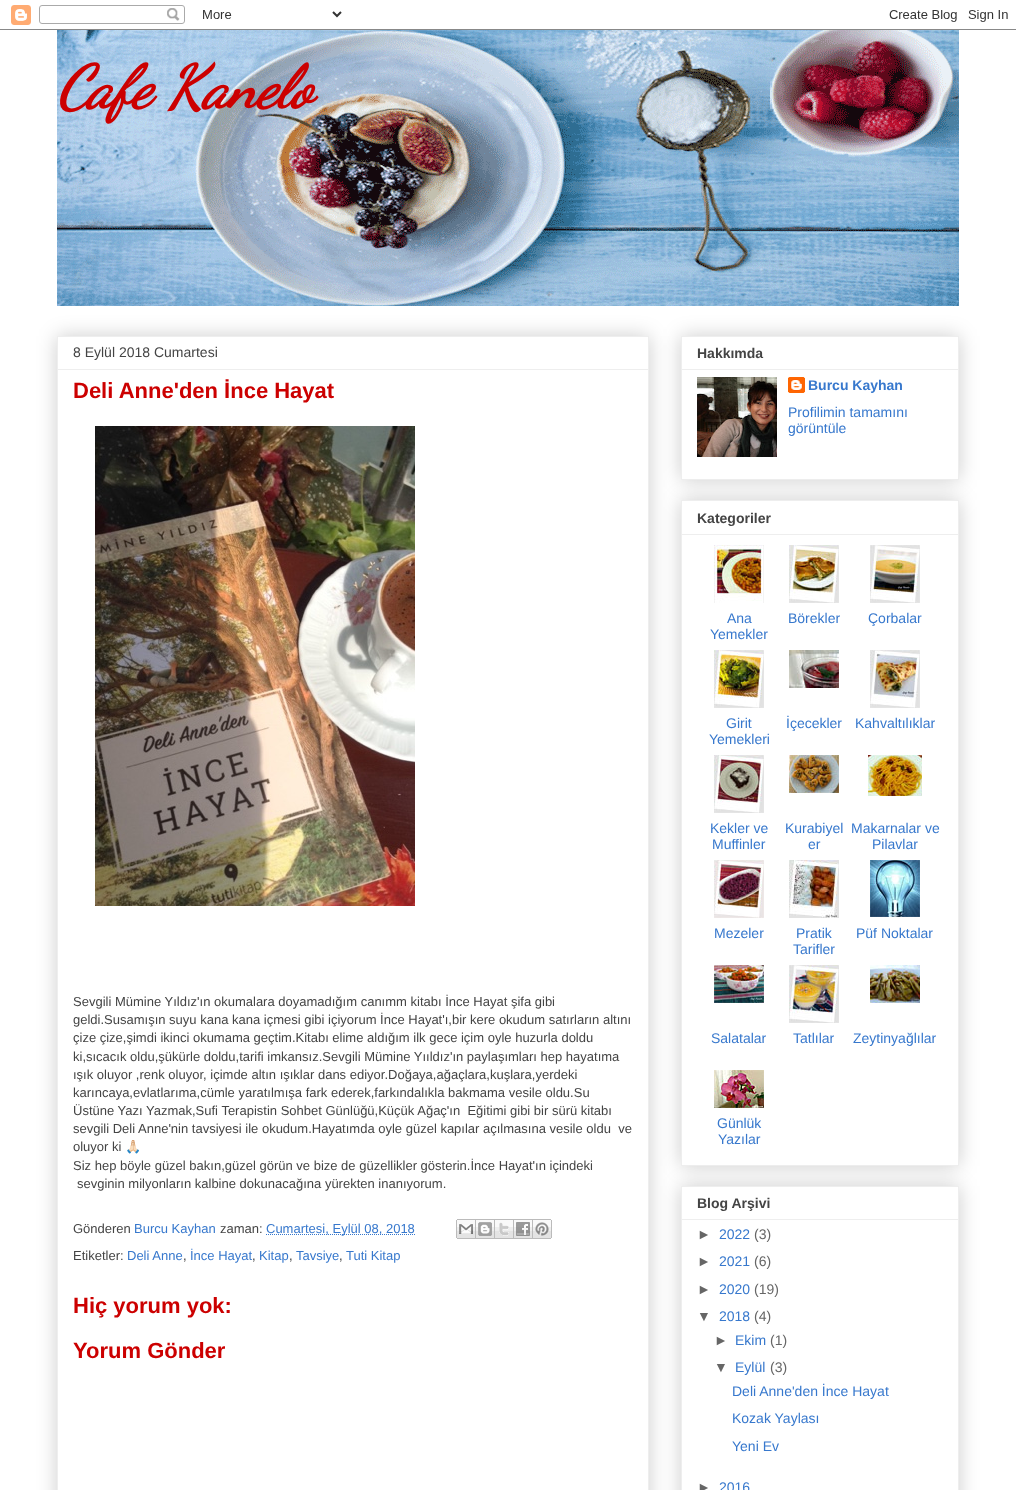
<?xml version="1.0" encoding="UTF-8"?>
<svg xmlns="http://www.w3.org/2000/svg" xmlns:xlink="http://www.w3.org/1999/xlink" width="1016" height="1490">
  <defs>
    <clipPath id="clip1"><path d="M 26 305 h 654 v 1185 h -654 z m 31 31 h 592 v 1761 h -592 z" clip-rule="evenodd" /></clipPath>
    <clipPath id="clip2"><path d="M 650 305 h 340 v 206 h -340 z m 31 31 h 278 v 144 h -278 z" clip-rule="evenodd" /></clipPath>
    <clipPath id="clip3"><path d="M 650 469 h 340 v 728 h -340 z m 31 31 h 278 v 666 h -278 z" clip-rule="evenodd" /></clipPath>
    <clipPath id="clip4"><path d="M 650 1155 h 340 v 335 h -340 z m 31 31 h 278 v 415 h -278 z" clip-rule="evenodd" /></clipPath>
  </defs>
  <rect width="100%" height="100%" fill="#ffffff" />
  <image x="0" y="5" width="1016" height="25" xlink:href="image1.png" />
  <image x="57" y="30" width="902" height="276" xlink:href="image2.png" />
  <g clip-path="url(#clip1)">
    <rect x="57" y="336" width="592" height="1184" fill="#000000" fill-opacity="0.2" filter="blur(10px)" />
  </g>
  <rect x="57.5" y="336.5" width="591" height="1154" fill="none" stroke="#eeeeee" />
  <rect x="58" y="369" width="590" height="1" fill="#eeeeee" />
  <image x="95" y="426" width="320" height="480" xlink:href="image3.png" />
  <path d="M 266 1234.5 h 149" fill="none" stroke="#3778cd" stroke-dasharray="1 1" />
  <image x="456" y="1219" width="20" height="20" xlink:href="image4.png" />
  <image x="476" y="1219" width="19" height="20" xlink:href="image5.png" />
  <image x="495" y="1219" width="19" height="20" xlink:href="image6.png" />
  <image x="514" y="1219" width="19" height="20" xlink:href="image7.png" />
  <image x="533" y="1219" width="19" height="20" xlink:href="image8.png" />
  <g clip-path="url(#clip2)">
    <rect x="681" y="336" width="278" height="144" fill="#000000" fill-opacity="0.2" filter="blur(10px)" />
  </g>
  <rect x="681.5" y="336.5" width="277" height="143" fill="none" stroke="#eeeeee" />
  <rect x="682" y="369" width="276" height="1" fill="#eeeeee" />
  <image x="697" y="377" width="80" height="80" xlink:href="image9.png" />
  <image x="788" y="377" width="17" height="16" xlink:href="image10.png" />
  <g clip-path="url(#clip3)">
    <rect x="681" y="500" width="278" height="666" fill="#000000" fill-opacity="0.2" filter="blur(10px)" />
  </g>
  <rect x="681.5" y="500.5" width="277" height="665" fill="none" stroke="#eeeeee" />
  <rect x="682" y="534" width="276" height="1" fill="#eeeeee" />
  <image x="714" y="545" width="50" height="58" xlink:href="image11.png" />
  <image x="789" y="545" width="50" height="58" xlink:href="image12.png" />
  <image x="870" y="545" width="50" height="58" xlink:href="image13.png" />
  <image x="714" y="650" width="50" height="58" xlink:href="image14.png" />
  <image x="789" y="650" width="50" height="38" xlink:href="image15.png" />
  <image x="870" y="650" width="50" height="58" xlink:href="image16.png" />
  <image x="714" y="755" width="50" height="58" xlink:href="image17.png" />
  <image x="789" y="755" width="50" height="38" xlink:href="image18.png" />
  <image x="868" y="755" width="54" height="41" xlink:href="image19.png" />
  <image x="714" y="860" width="50" height="58" xlink:href="image20.png" />
  <image x="789" y="860" width="50" height="58" xlink:href="image21.png" />
  <image x="870" y="860" width="50" height="57" xlink:href="image22.png" />
  <image x="714" y="965" width="50" height="38" xlink:href="image23.png" />
  <image x="789" y="965" width="50" height="58" xlink:href="image24.png" />
  <image x="870" y="965" width="50" height="38" xlink:href="image25.png" />
  <image x="714" y="1070" width="50" height="38" xlink:href="image26.png" />
  <g clip-path="url(#clip4)">
    <rect x="681" y="1186" width="278" height="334" fill="#000000" fill-opacity="0.2" filter="blur(10px)" />
  </g>
  <rect x="681.5" y="1186.5" width="277" height="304" fill="none" stroke="#eeeeee" />
  <rect x="682" y="1219" width="276" height="1" fill="#eeeeee" />
  <text x="57" y="107" style="font-family: Dancing Script; font-size: 60px; font-weight: bold; font-style: italic; fill: #cc0000">Cafe Kanelo</text>
  <text x="73" y="357" style="font-family: Liberation Sans; font-size: 14px; fill: #444444">8 Eylül 2018 Cumartesi</text>
  <text x="73" y="398" style="font-family: Liberation Sans; font-size: 22px; font-weight: bold; fill: #cc0000">Deli Anne'den İnce Hayat</text>
  <text x="73" y="1006" style="font-family: Liberation Sans; font-size: 13px; fill: #444444">Sevgili Mümine Yıldız'ın okumalara doyamadığım canımm kitabı İnce Hayat şifa gibi</text>
  <text x="73" y="1024" style="font-family: Liberation Sans; font-size: 13px; fill: #444444">geldi.Susamışın suyu kana kana içmesi gibi içiyorum İnce Hayat'ı,bir kere okudum satırların altını</text>
  <text x="73" y="1042" style="font-family: Liberation Sans; font-size: 13px; fill: #444444">çize çize,şimdi ikinci okumama geçtim.Kitabı elime aldığım ilk gece içim oyle huzurla doldu</text>
  <text x="73" y="1061" style="font-family: Liberation Sans; font-size: 13px; fill: #444444">ki,sıcacık oldu,şükürle doldu,tarifi imkansız.Sevgili Mümine Yııldız'ın paylaşımları hep hayatıma</text>
  <text x="73" y="1079" style="font-family: Liberation Sans; font-size: 13px; fill: #444444">ışık oluyor ,renk oluyor, içimde altın ışıklar dans ediyor.Doğaya,ağaçlara,kuşlara,yerdeki</text>
  <text x="73" y="1097" style="font-family: Liberation Sans; font-size: 13px; fill: #444444">karıncaya,evlatlarıma,cümle yaratılmışa fark ederek,farkındalıkla bakmama vesile oldu.Su</text>
  <text x="73" y="1115" style="font-family: Liberation Sans; font-size: 13px; fill: #444444" xml:space="preserve">Üstüne Yazı Yazmak,Sufi Terapistin Sohbet Günlüğü,Küçük Ağaç'ın  Eğitimi gibi bir sürü kitabı</text>
  <text x="73" y="1133" style="font-family: Liberation Sans; font-size: 13px; fill: #444444" xml:space="preserve">sevgili Deli Anne'nin tavsiyesi ile okudum.Hayatımda oyle güzel kapılar açılmasına vesile oldu  ve</text>
  <text x="73" y="1151" style="font-family: Liberation Sans; font-size: 13px; fill: #444444">oluyor ki</text>
  <text x="125" y="1151" style="font-family: Noto Color Emoji; font-size: 13px; fill: #444444">🙏🏻</text>
  <text x="73" y="1170" style="font-family: Liberation Sans; font-size: 13px; fill: #444444">Siz hep böyle güzel bakın,güzel görün ve bize de güzellikler gösterin.İnce Hayat'ın içindeki</text>
  <text x="77" y="1188" style="font-family: Liberation Sans; font-size: 13px; fill: #444444">sevginin milyonların kalbine dokunacağına yürekten inanıyorum.</text>
  <text x="73" y="1233" style="font-family: Liberation Sans; font-size: 13px; fill: #444444">Gönderen</text>
  <text x="134" y="1233" style="font-family: Liberation Sans; font-size: 13px; fill: #3778cd">Burcu Kayhan</text>
  <text x="220" y="1233" style="font-family: Liberation Sans; font-size: 13px; fill: #444444">zaman:</text>
  <text x="266" y="1233" style="font-family: Liberation Sans; font-size: 13px; fill: #3778cd">Cumartesi, Eylül 08, 2018</text>
  <text x="73" y="1260" style="font-family: Liberation Sans; font-size: 13px; fill: #444444">Etiketler:</text>
  <text x="127" y="1260" style="font-family: Liberation Sans; font-size: 13px; fill: #3778cd">Deli Anne</text>
  <text x="183" y="1260" style="font-family: Liberation Sans; font-size: 13px; fill: #444444">,</text>
  <text x="190" y="1260" style="font-family: Liberation Sans; font-size: 13px; fill: #3778cd">İnce Hayat</text>
  <text x="252" y="1260" style="font-family: Liberation Sans; font-size: 13px; fill: #444444">,</text>
  <text x="259" y="1260" style="font-family: Liberation Sans; font-size: 13px; fill: #3778cd">Kitap</text>
  <text x="289" y="1260" style="font-family: Liberation Sans; font-size: 13px; fill: #444444">,</text>
  <text x="296" y="1260" style="font-family: Liberation Sans; font-size: 13px; fill: #3778cd">Tavsiye</text>
  <text x="339" y="1260" style="font-family: Liberation Sans; font-size: 13px; fill: #444444">,</text>
  <text x="346" y="1260" style="font-family: Liberation Sans; font-size: 13px; fill: #3778cd">Tuti Kitap</text>
  <text x="73" y="1313" style="font-family: Liberation Sans; font-size: 22px; font-weight: bold; fill: #cc0000">Hiç yorum yok:</text>
  <text x="73" y="1358" style="font-family: Liberation Sans; font-size: 22px; font-weight: bold; fill: #cc0000">Yorum Gönder</text>
  <text x="697" y="358" style="font-family: Liberation Sans; font-size: 14px; font-weight: bold; fill: #444444">Hakkımda</text>
  <text x="808" y="390" style="font-family: Liberation Sans; font-size: 14px; font-weight: bold; fill: #3778cd">Burcu Kayhan</text>
  <text x="788" y="417" style="font-family: Liberation Sans; font-size: 14px; fill: #3778cd">Profilimin tamamını</text>
  <text x="788" y="433" style="font-family: Liberation Sans; font-size: 14px; fill: #3778cd">görüntüle</text>
  <text x="697" y="523" style="font-family: Liberation Sans; font-size: 14px; font-weight: bold; fill: #444444">Kategoriler</text>
  <text x="727" y="623" style="font-family: Liberation Sans; font-size: 14px; fill: #3778cd">Ana</text>
  <text x="710" y="639" style="font-family: Liberation Sans; font-size: 14px; fill: #3778cd">Yemekler</text>
  <text x="788" y="623" style="font-family: Liberation Sans; font-size: 14px; fill: #3778cd">Börekler</text>
  <text x="868" y="623" style="font-family: Liberation Sans; font-size: 14px; fill: #3778cd">Çorbalar</text>
  <text x="726" y="728" style="font-family: Liberation Sans; font-size: 14px; fill: #3778cd">Girit</text>
  <text x="709" y="744" style="font-family: Liberation Sans; font-size: 14px; fill: #3778cd">Yemekleri</text>
  <text x="786" y="728" style="font-family: Liberation Sans; font-size: 14px; fill: #3778cd">İçecekler</text>
  <text x="855" y="728" style="font-family: Liberation Sans; font-size: 14px; fill: #3778cd">Kahvaltılıklar</text>
  <text x="710" y="833" style="font-family: Liberation Sans; font-size: 14px; fill: #3778cd">Kekler ve</text>
  <text x="712" y="849" style="font-family: Liberation Sans; font-size: 14px; fill: #3778cd">Muffinler</text>
  <text x="785" y="833" style="font-family: Liberation Sans; font-size: 14px; fill: #3778cd">Kurabiyel</text>
  <text x="808" y="849" style="font-family: Liberation Sans; font-size: 14px; fill: #3778cd">er</text>
  <text x="851" y="833" style="font-family: Liberation Sans; font-size: 14px; fill: #3778cd">Makarnalar ve</text>
  <text x="872" y="849" style="font-family: Liberation Sans; font-size: 14px; fill: #3778cd">Pilavlar</text>
  <text x="714" y="938" style="font-family: Liberation Sans; font-size: 14px; fill: #3778cd">Mezeler</text>
  <text x="796" y="938" style="font-family: Liberation Sans; font-size: 14px; fill: #3778cd">Pratik</text>
  <text x="793" y="954" style="font-family: Liberation Sans; font-size: 14px; fill: #3778cd">Tarifler</text>
  <text x="856" y="938" style="font-family: Liberation Sans; font-size: 14px; fill: #3778cd">Püf Noktalar</text>
  <text x="711" y="1043" style="font-family: Liberation Sans; font-size: 14px; fill: #3778cd">Salatalar</text>
  <text x="793" y="1043" style="font-family: Liberation Sans; font-size: 14px; fill: #3778cd">Tatlılar</text>
  <text x="853" y="1043" style="font-family: Liberation Sans; font-size: 14px; fill: #3778cd">Zeytinyağlılar</text>
  <text x="717" y="1128" style="font-family: Liberation Sans; font-size: 14px; fill: #3778cd">Günlük</text>
  <text x="718" y="1144" style="font-family: Liberation Sans; font-size: 14px; fill: #3778cd">Yazılar</text>
  <text x="697" y="1208" style="font-family: Liberation Sans; font-size: 14px; font-weight: bold; fill: #444444">Blog Arşivi</text>
  <text x="697" y="1239" style="font-family: Liberation Sans; font-size: 14px; fill: #666666">►</text>
  <text x="719" y="1239" style="font-family: Liberation Sans; font-size: 14px; fill: #3778cd">2022</text>
  <text x="754" y="1239" style="font-family: Liberation Sans; font-size: 14px; fill: #666666">(3)</text>
  <text x="697" y="1266" style="font-family: Liberation Sans; font-size: 14px; fill: #666666">►</text>
  <text x="719" y="1266" style="font-family: Liberation Sans; font-size: 14px; fill: #3778cd">2021</text>
  <text x="754" y="1266" style="font-family: Liberation Sans; font-size: 14px; fill: #666666">(6)</text>
  <text x="697" y="1294" style="font-family: Liberation Sans; font-size: 14px; fill: #666666">►</text>
  <text x="719" y="1294" style="font-family: Liberation Sans; font-size: 14px; fill: #3778cd">2020</text>
  <text x="754" y="1294" style="font-family: Liberation Sans; font-size: 14px; fill: #666666">(19)</text>
  <text x="697" y="1321" style="font-family: Liberation Sans; font-size: 14px; fill: #666666">▼</text>
  <text x="719" y="1321" style="font-family: Liberation Sans; font-size: 14px; fill: #3778cd">2018</text>
  <text x="754" y="1321" style="font-family: Liberation Sans; font-size: 14px; fill: #666666">(4)</text>
  <text x="714" y="1345" style="font-family: Liberation Sans; font-size: 14px; fill: #666666">►</text>
  <text x="735" y="1345" style="font-family: Liberation Sans; font-size: 14px; fill: #3778cd">Ekim</text>
  <text x="770" y="1345" style="font-family: Liberation Sans; font-size: 14px; fill: #666666">(1)</text>
  <text x="714" y="1372" style="font-family: Liberation Sans; font-size: 14px; fill: #666666">▼</text>
  <text x="735" y="1372" style="font-family: Liberation Sans; font-size: 14px; fill: #3778cd">Eylül</text>
  <text x="770" y="1372" style="font-family: Liberation Sans; font-size: 14px; fill: #666666">(3)</text>
  <text x="732" y="1396" style="font-family: Liberation Sans; font-size: 14px; fill: #3778cd">Deli Anne'den İnce Hayat</text>
  <text x="732" y="1423" style="font-family: Liberation Sans; font-size: 14px; fill: #3778cd">Kozak Yaylası</text>
  <text x="732" y="1451" style="font-family: Liberation Sans; font-size: 14px; fill: #3778cd">Yeni Ev</text>
  <text x="697" y="1492" style="font-family: Liberation Sans; font-size: 14px; fill: #666666">►</text>
  <text x="719" y="1492" style="font-family: Liberation Sans; font-size: 14px; fill: #3778cd">2016</text>
</svg>
